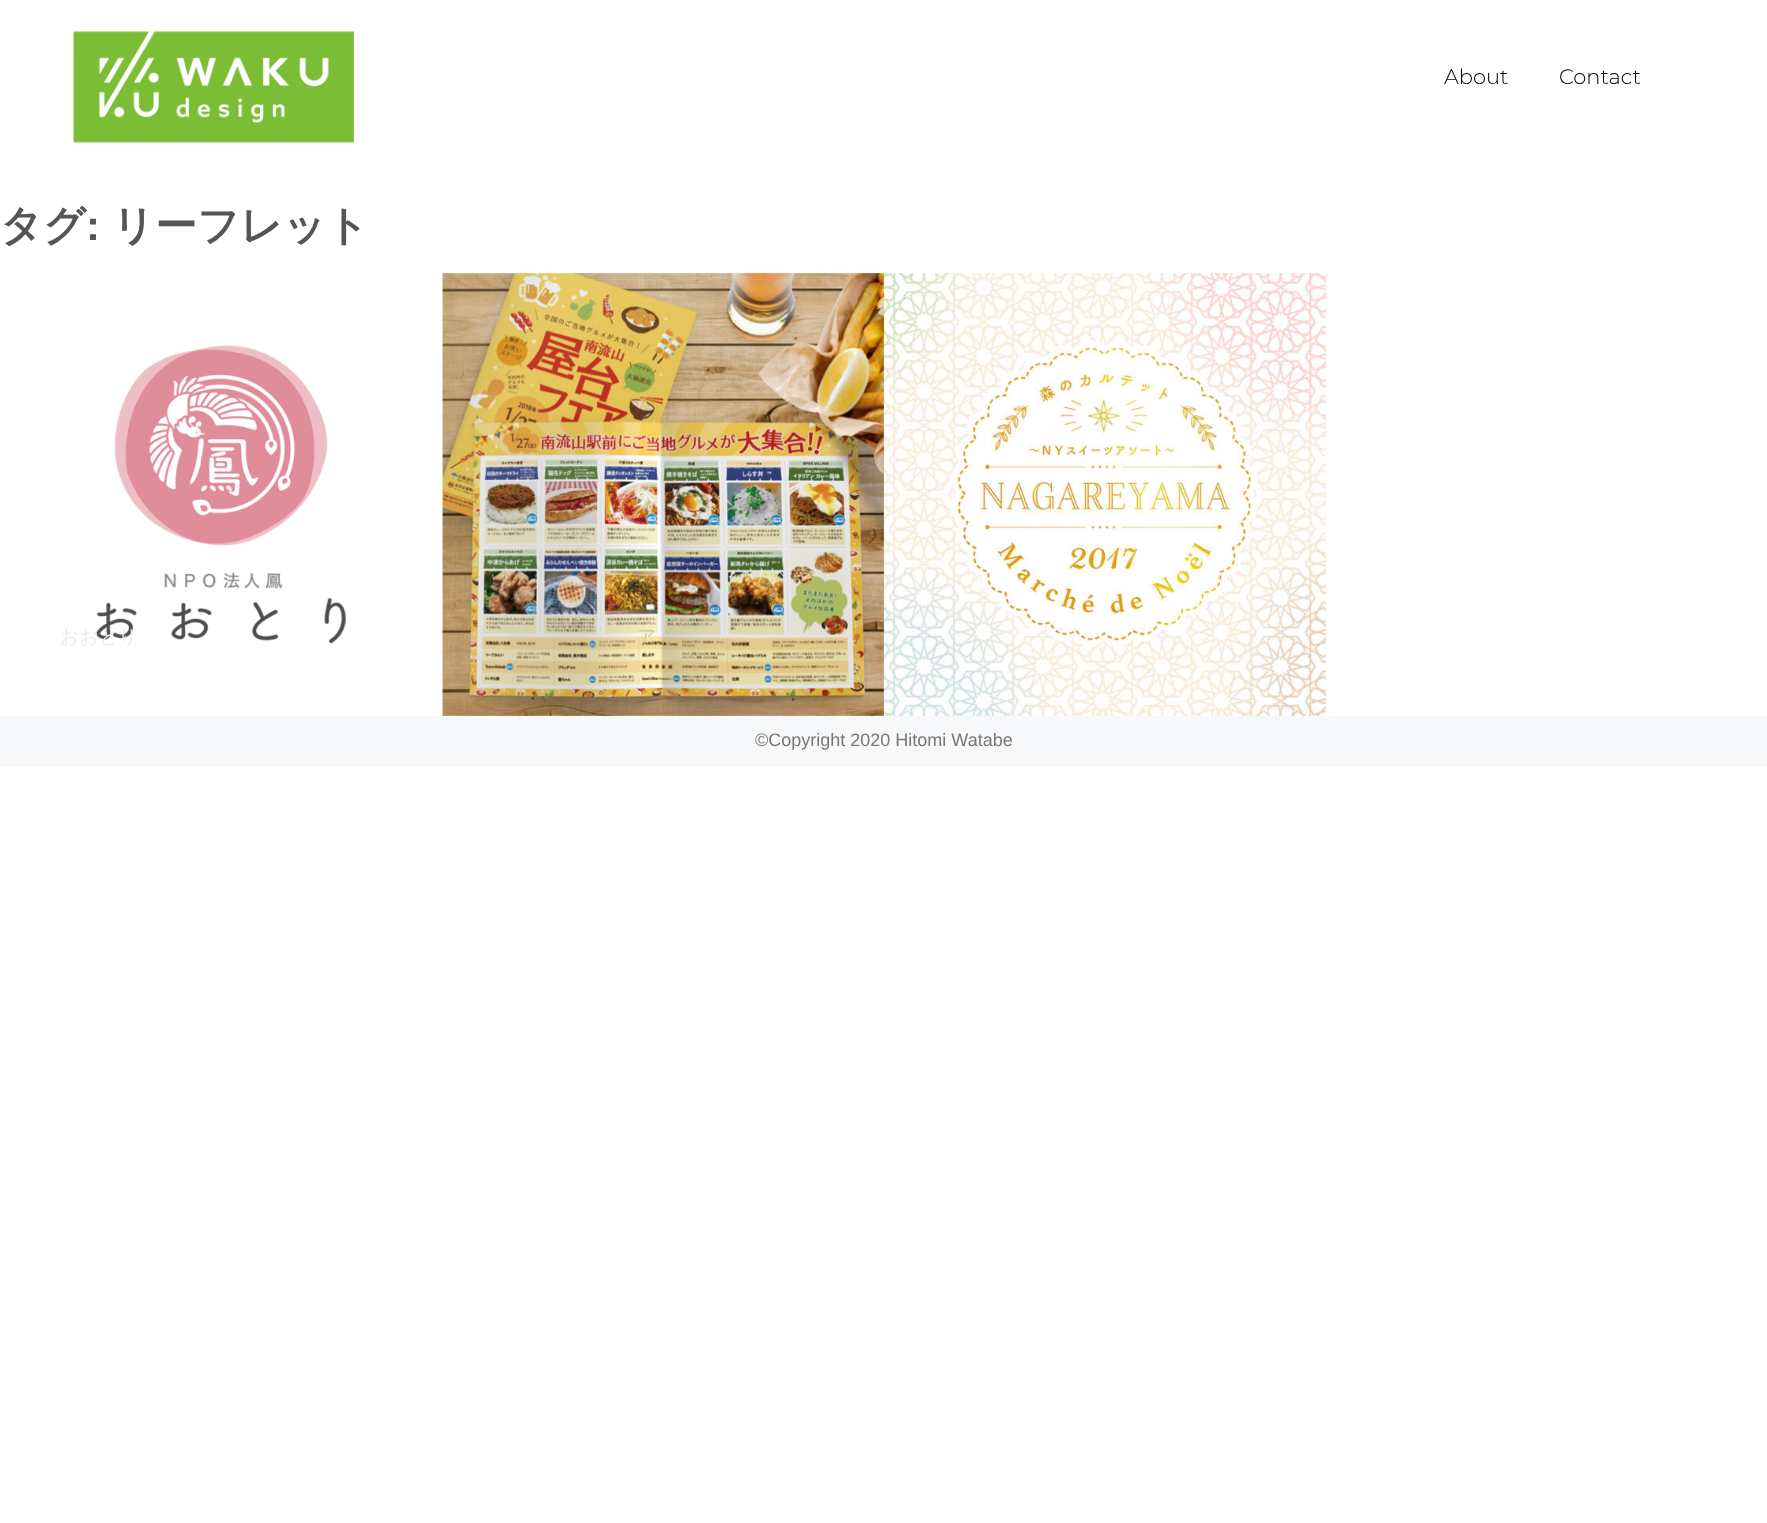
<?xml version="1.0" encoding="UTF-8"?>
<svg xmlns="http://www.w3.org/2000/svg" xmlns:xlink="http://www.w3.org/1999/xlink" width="1767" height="1523">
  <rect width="100%" height="100%" fill="#ffffff" />
  <image x="73" y="31" width="281" height="112" xlink:href="image1.png" />
  <image x="0" y="273" width="443" height="443" xlink:href="image2.png" />
  <image x="442" y="273" width="442" height="443" xlink:href="image3.png" />
  <image x="884" y="273" width="442" height="443" xlink:href="image4.png" />
  <rect y="716" width="1767" height="51" fill="#f6f8fa" />
  <text x="1444" y="84" style="font-family: Montserrat; font-size: 21px; font-weight: 300; fill: #000000">About</text>
  <text x="1559" y="84" style="font-family: Montserrat; font-size: 21px; font-weight: 300; fill: #000000">Contact</text>
  <text x="0" y="240" style="font-family: WenQuanYi Zen Hei; font-size: 42px; font-weight: bold; fill: #555555">タグ</text>
  <text x="86" y="240" style="font-family: Liberation Sans; font-size: 42px; font-weight: bold; fill: #555555">:</text>
  <text x="112" y="240" style="font-family: WenQuanYi Zen Hei; font-size: 42px; font-weight: bold; fill: #555555">リーフレット</text>
  <text x="60" y="643" style="font-family: WenQuanYi Zen Hei; font-size: 19px; font-weight: 500; fill: #ecebeb">おおとり</text>
  <text x="637" y="643" style="font-family: WenQuanYi Zen Hei; font-size: 19px; font-weight: 500; fill: #d2c7a5">ア</text>
  <text x="755" y="746" style="font-family: Liberation Sans; font-size: 18px; fill: #777777">©︎Copyright 2020 Hitomi Watabe</text>
</svg>
